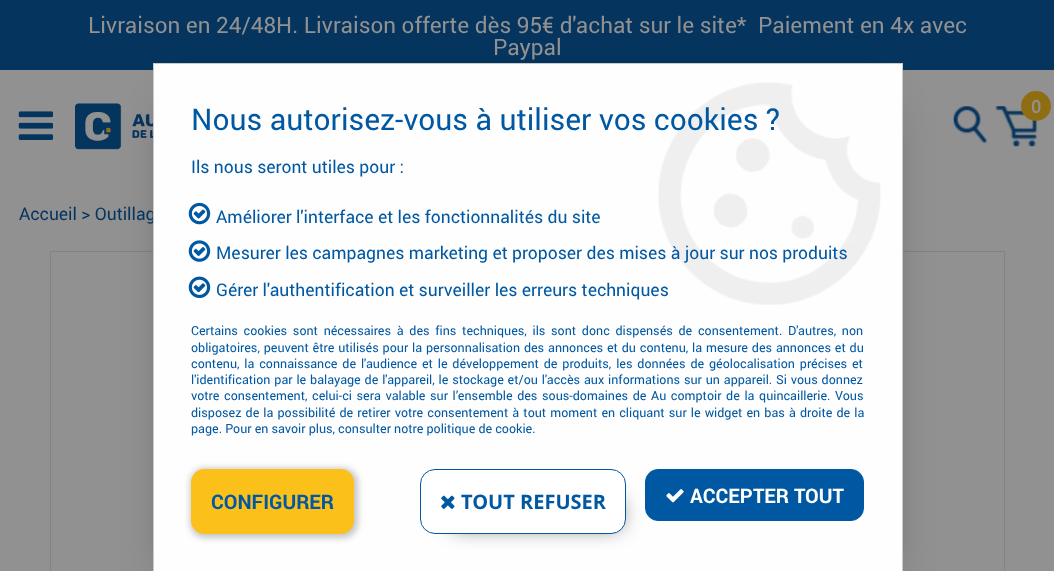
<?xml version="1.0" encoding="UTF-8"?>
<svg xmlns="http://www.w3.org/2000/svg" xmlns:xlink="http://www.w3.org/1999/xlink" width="1054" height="571">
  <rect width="100%" height="100%" fill="#919191" />
  <rect width="1054" height="70" fill="#05355e" />
  <image x="18" y="111" width="36" height="29" xlink:href="image1.png" />
  <image x="75" y="103" width="78" height="47" xlink:href="image2.png" />
  <image x="953" y="106" width="34" height="38" xlink:href="image3.png" />
  <image x="995" y="106" width="42" height="41" xlink:href="image4.png" />
  <circle cx="1036" cy="106" r="15" fill="#8f6e13" />
  <rect x="50.5" y="251.5" width="954" height="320" fill="none" stroke="#838383" />
  <rect x="178" y="113" width="700" height="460" fill="#000000" fill-opacity="0.5" filter="blur(25px)" />
  <text x="88" y="33" style="font-family: roboto; font-size: 22.5px; fill: #919191">Livraison en 24/48H. Livraison offerte dès 95€ d'achat sur le site*</text>
  <text x="758" y="33" style="font-family: roboto; font-size: 22.5px; fill: #919191">Paiement en 4x avec</text>
  <text x="493" y="55" style="font-family: roboto; font-size: 22.5px; fill: #919191">Paypal</text>
  <text x="1031" y="113" style="font-family: roboto; font-size: 17.5px; font-weight: bold; fill: #919191">0</text>
  <text x="19" y="220" style="font-family: roboto; font-size: 17.5px; fill: #05355e">Accueil &gt; Outillag</text>
  <rect x="154" y="64" width="748" height="507" fill="#fefefe" />
  <image x="658" y="82" width="223" height="223" xlink:href="image5.png" />
  <rect x="153.5" y="63.5" width="749" height="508" fill="none" stroke="#cacaca" />
  <text x="191" y="130" style="font-family: roboto; font-size: 30px; fill: #0058a2">Nous autorisez-vous à utiliser vos cookies ?</text>
  <text x="191" y="173" style="font-family: roboto; font-size: 17.5px; fill: #0058a2">Ils nous seront utiles pour :</text>
  <image x="188" y="202" width="23" height="23" xlink:href="image6.png" />
  <text x="216" y="223" style="font-family: roboto; font-size: 17.5px; fill: #0058a2">Améliorer l'interface et les fonctionnalités du site</text>
  <image x="188" y="240" width="23" height="22" xlink:href="image7.png" />
  <text x="216" y="259" style="font-family: roboto; font-size: 17.5px; fill: #0058a2">Mesurer les campagnes marketing et proposer des mises à jour sur nos produits</text>
  <image x="188" y="276" width="23" height="22" xlink:href="image8.png" />
  <text x="216" y="296" style="font-family: roboto; font-size: 17.5px; fill: #0058a2">Gérer l'authentification et surveiller les erreurs techniques</text>
  <text x="191" y="335" word-spacing="2.6" style="font-family: roboto; font-size: 12.5px; fill: #0058a2">Certains cookies sont nécessaires à des fins techniques, ils sont donc dispensés de consentement. D'autres, non</text>
  <text x="191" y="352" word-spacing="0.75" style="font-family: roboto; font-size: 12.5px; fill: #0058a2">obligatoires, peuvent être utilisés pour la personnalisation des annonces et du contenu, la mesure des annonces et du</text>
  <text x="191" y="368" word-spacing="1.75" style="font-family: roboto; font-size: 12.5px; fill: #0058a2">contenu, la connaissance de l'audience et le développement de produits, les données de géolocalisation précises et</text>
  <text x="191" y="384" word-spacing="0.75" style="font-family: roboto; font-size: 12.5px; fill: #0058a2">l'identification par le balayage de l'appareil, le stockage et/ou l'accès aux informations sur un appareil. Si vous donnez</text>
  <text x="191" y="400" word-spacing="1.5" style="font-family: roboto; font-size: 12.5px; fill: #0058a2">votre consentement, celui-ci sera valable sur l’ensemble des sous-domaines de Au comptoir de la quincaillerie. Vous</text>
  <text x="191" y="417" word-spacing="1" style="font-family: roboto; font-size: 12.5px; fill: #0058a2">disposez de la possibilité de retirer votre consentement à tout moment en cliquant sur le widget en bas à droite de la</text>
  <text x="191" y="433" style="font-family: roboto; font-size: 12.5px; fill: #0058a2">page. Pour en savoir plus, consulter notre politique de cookie.</text>
  <rect x="190" y="468" width="168" height="70" rx="15" fill="#000000" fill-opacity="0.22" filter="blur(3px)" />
  <rect x="191.5" y="469.5" width="162" height="64" rx="12.5" fill="#fcc01a" stroke="#fcc01a" />
  <text x="211" y="509" style="font-family: 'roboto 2'; font-size: 20px; font-weight: bold; fill: #0058a2">CONFIGURER</text>
  <rect x="453" y="501" width="166" height="25" fill="#000000" fill-opacity="0.72" filter="blur(10.5px)" />
  <rect x="420.5" y="469.5" width="205" height="64" rx="14.5" fill="#ffffff" stroke="#0058a2" />
  <image x="441" y="495" width="14" height="14" xlink:href="image9.png" />
  <text x="461" y="509" style="font-family: Open Sans; font-size: 20px; font-weight: bold; fill: #0058a2">TOUT REFUSER</text>
  <rect x="645.5" y="469.5" width="218" height="51" rx="12.5" fill="#0058a2" stroke="#0058a2" />
  <image x="666" y="489" width="18" height="14" xlink:href="image10.png" />
  <text x="690" y="503" style="font-family: 'roboto 2'; font-size: 20px; font-weight: bold; fill: #ffffff">ACCEPTER TOUT</text>
</svg>
